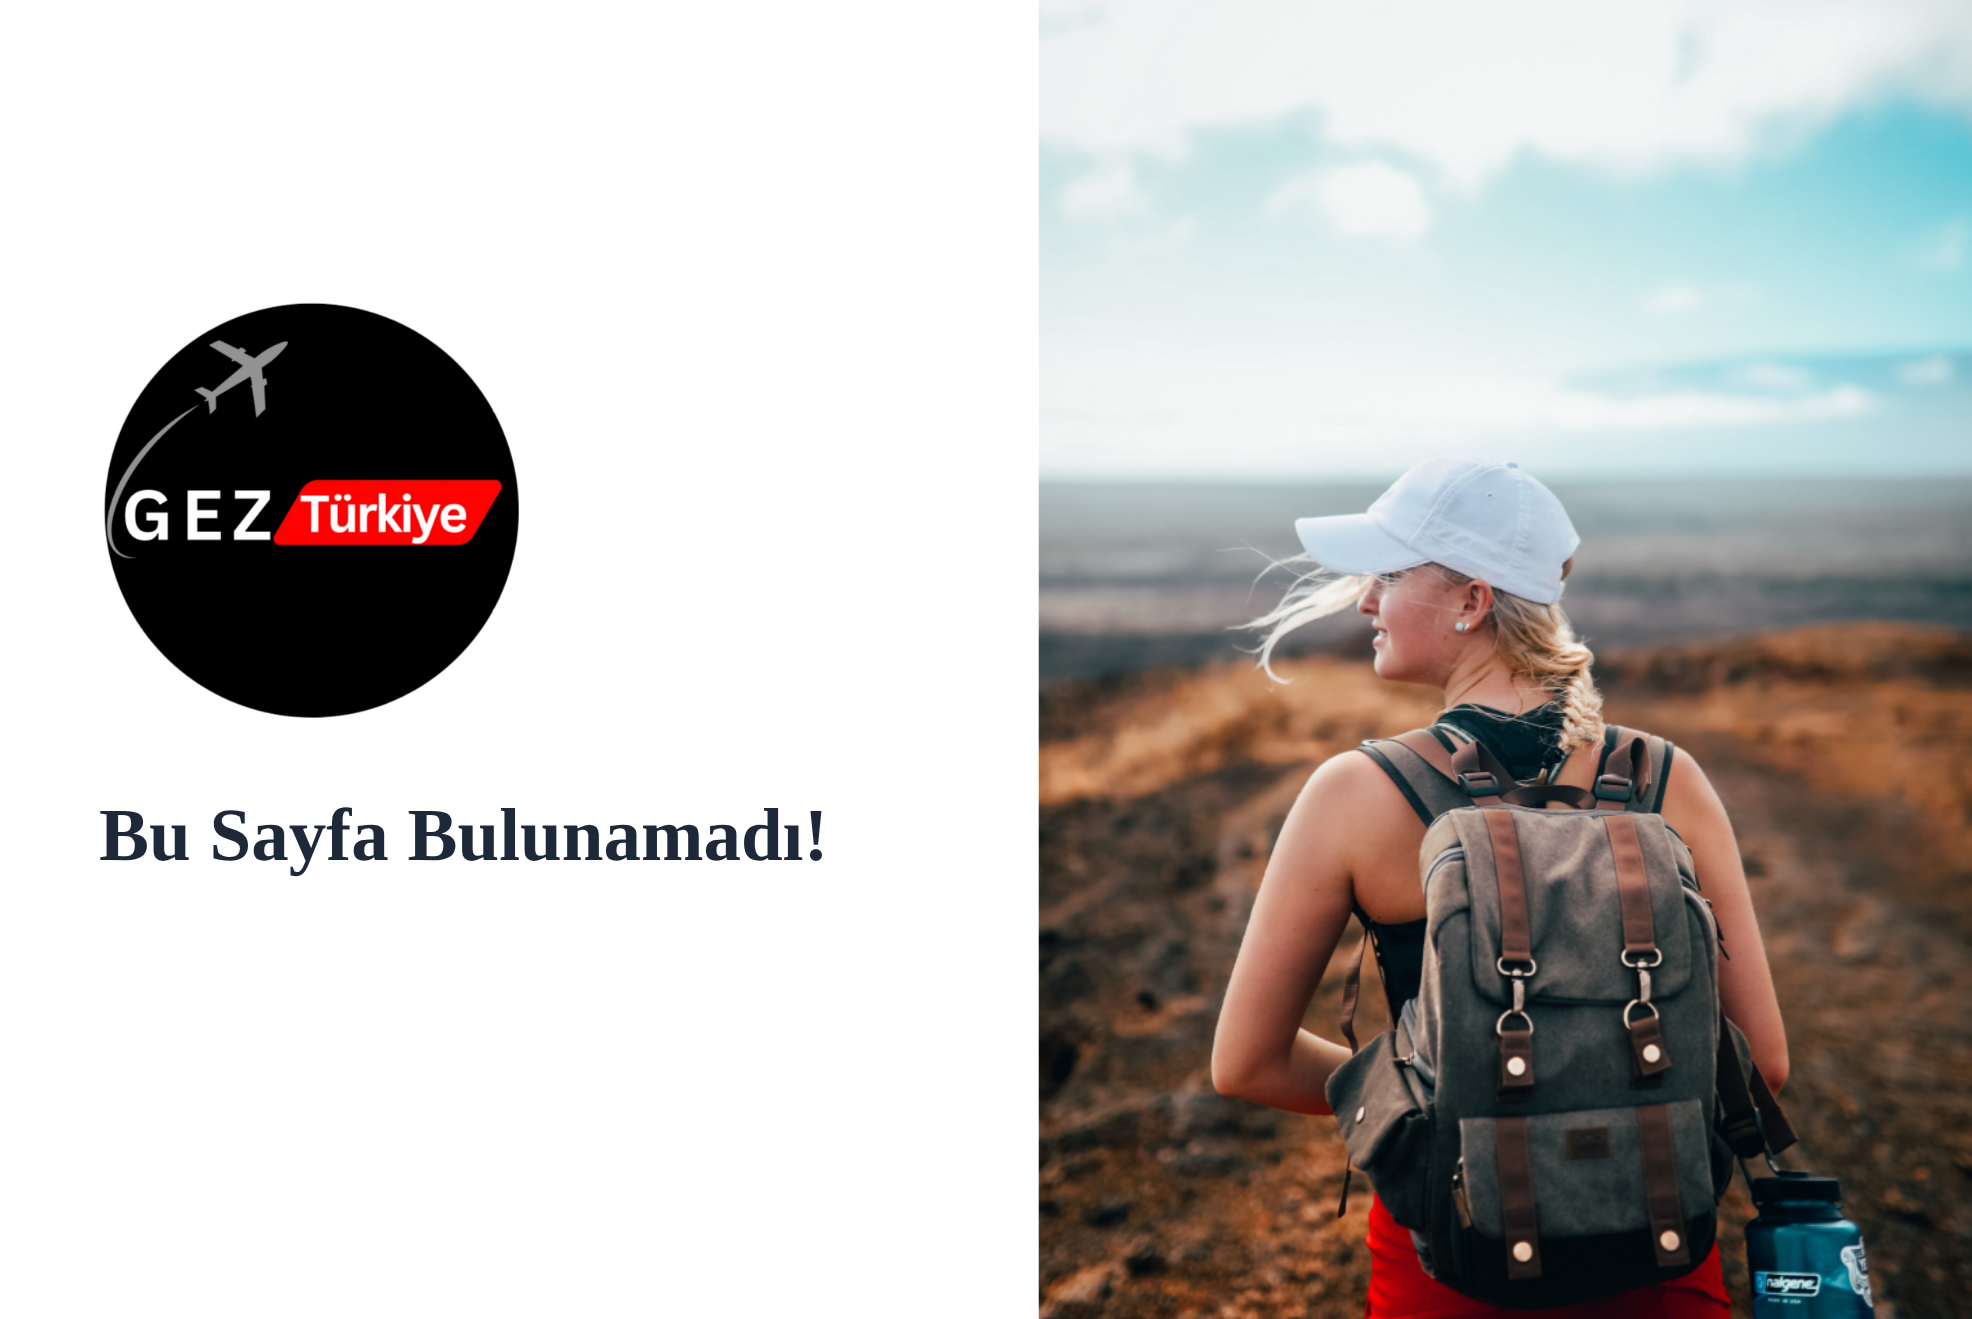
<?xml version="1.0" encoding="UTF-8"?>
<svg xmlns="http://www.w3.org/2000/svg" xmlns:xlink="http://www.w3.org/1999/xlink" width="1972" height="1319">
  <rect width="100%" height="100%" fill="#ffffff" />
  <image x="103" y="302" width="416" height="416" xlink:href="image1.png" />
  <image x="1038" y="0" width="934" height="1319" xlink:href="image2.png" />
  <text x="99" y="860" style="font-family: Liberation Serif; font-size: 75px; font-weight: bold; fill: #1d2939">Bu Sayfa Bulunamadı!</text>
</svg>
